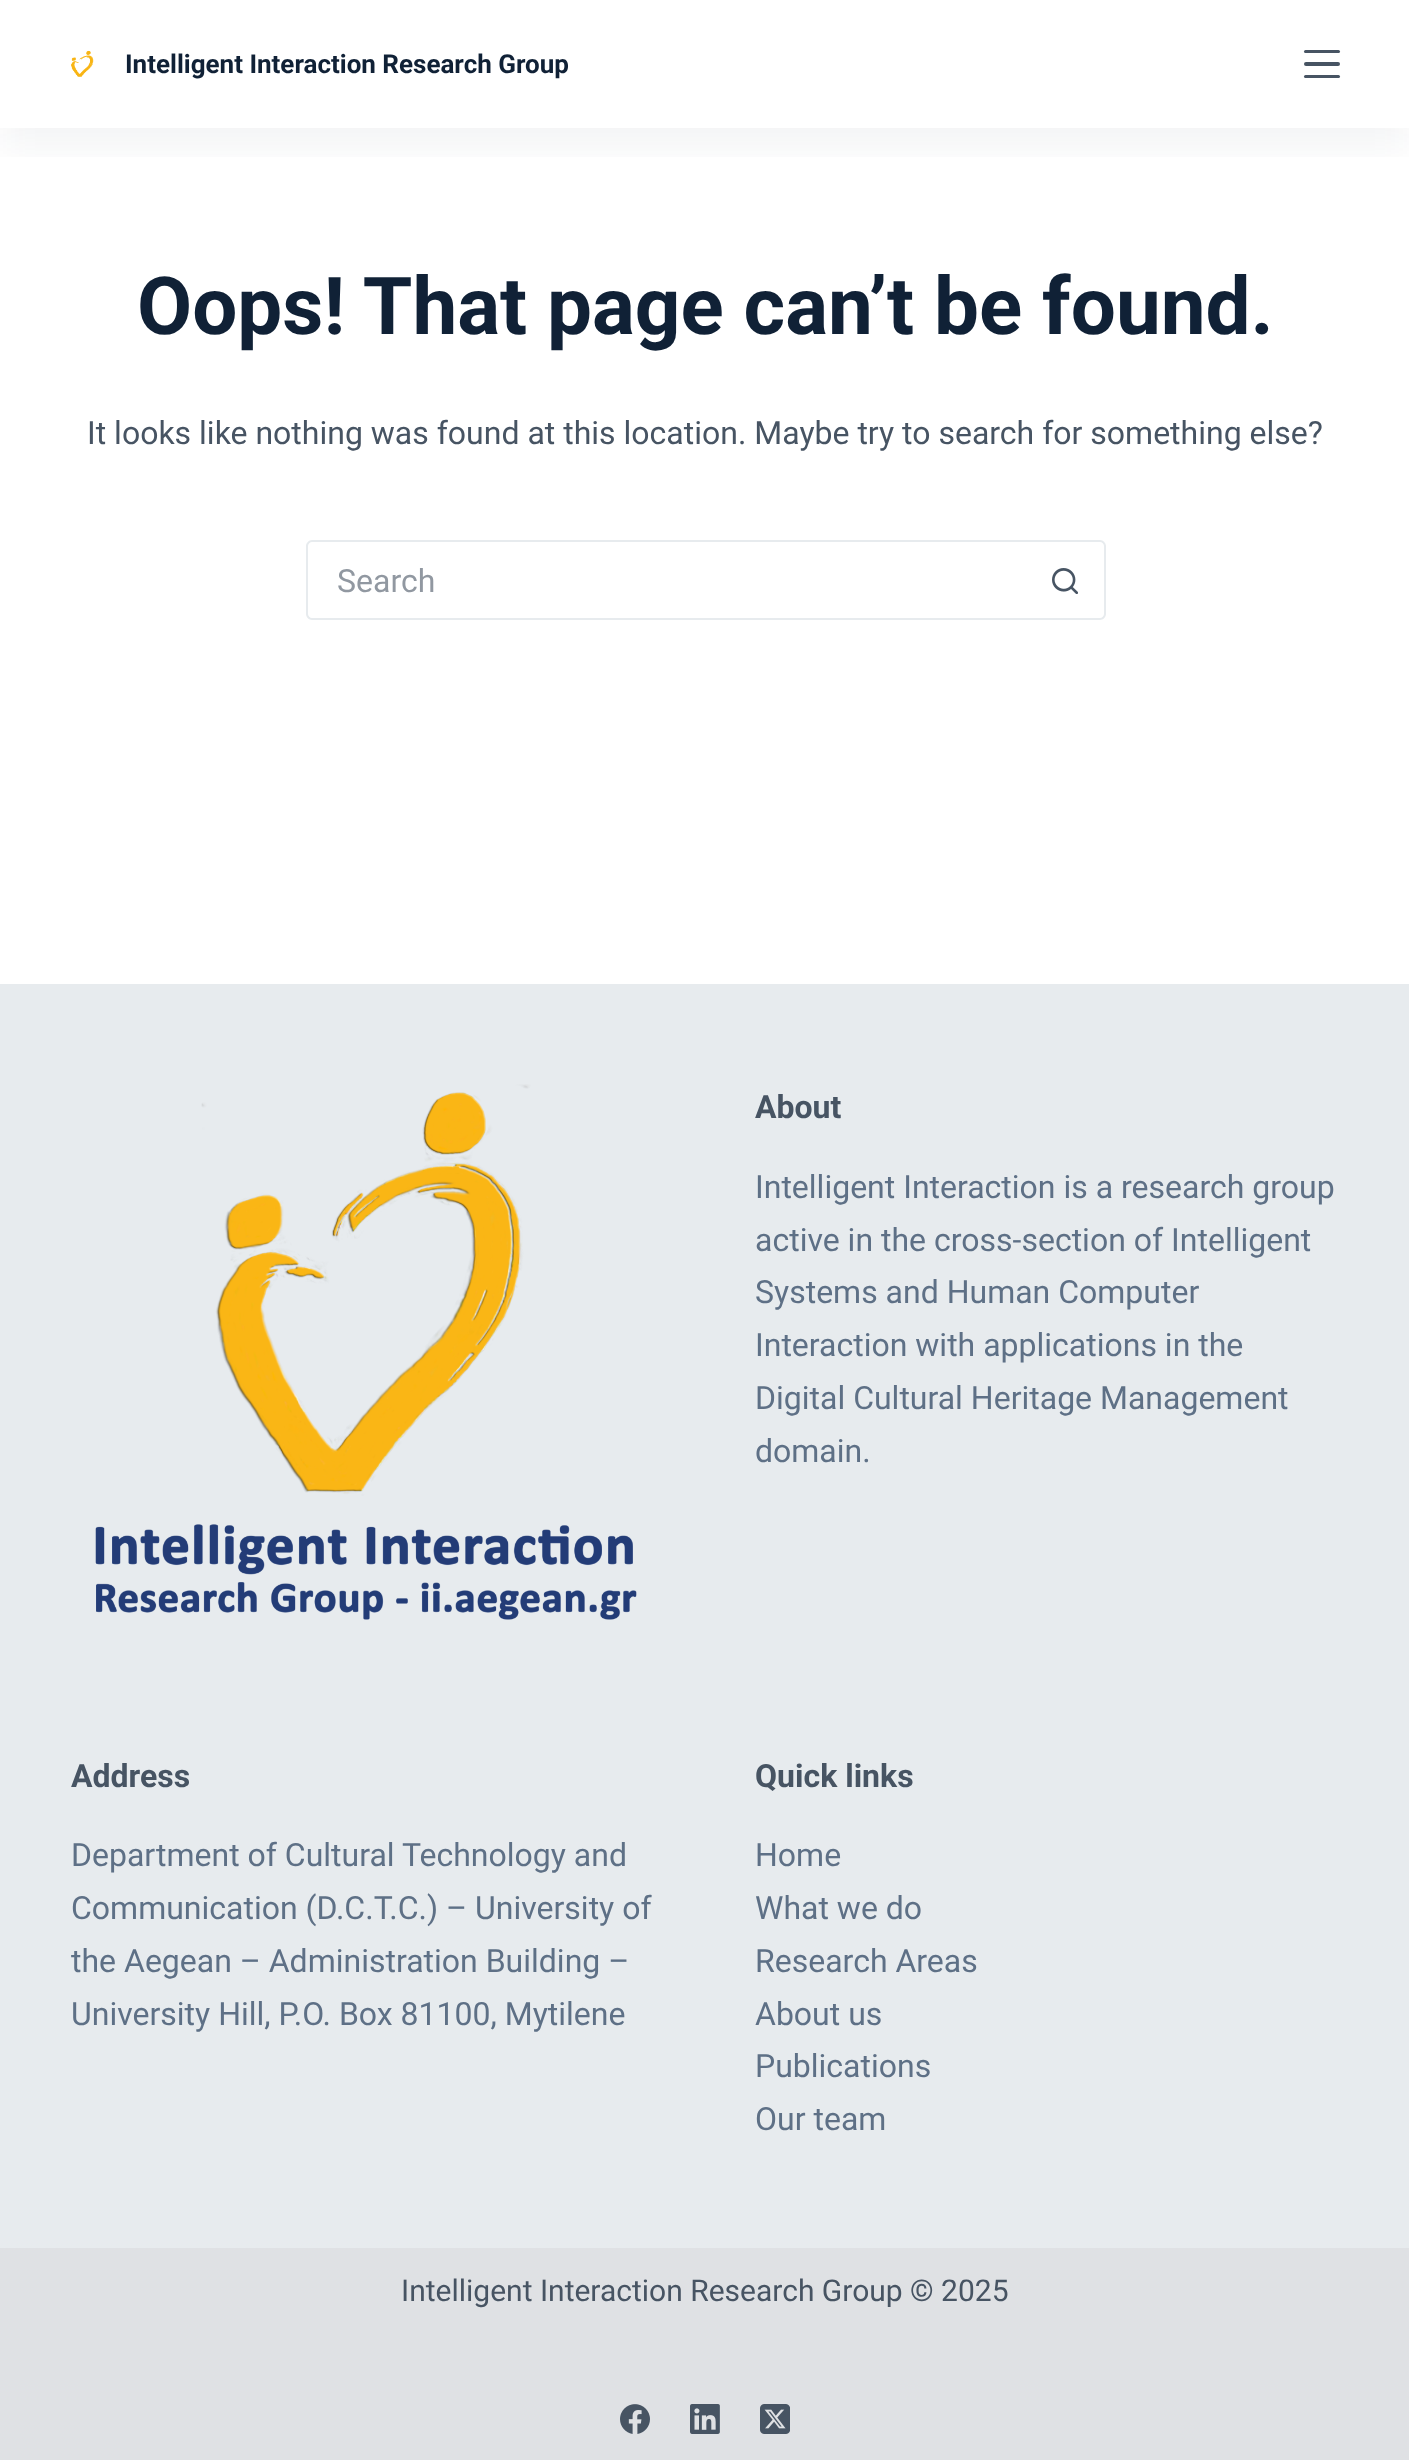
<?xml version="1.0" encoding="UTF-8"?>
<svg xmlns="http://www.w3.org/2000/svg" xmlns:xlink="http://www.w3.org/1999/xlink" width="1409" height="2460">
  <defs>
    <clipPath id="clip1"><rect x="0" y="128" width="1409" height="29" /></clipPath>
  </defs>
  <rect width="100%" height="100%" fill="#ffffff" />
  <g clip-path="url(#clip1)">
    <rect y="20" width="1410" height="128" fill="#2b3d50" fill-opacity="0.06" filter="blur(20px)" />
  </g>
  <image x="71" y="50" width="23" height="27" xlink:href="image1.png" />
  <rect x="1304" y="50" width="36" height="3" rx="1.5" fill="#475463" />
  <rect x="1304" y="62" width="36" height="4" rx="2" fill="#475463" />
  <rect x="1304" y="75" width="36" height="3" rx="1.5" fill="#475463" />
  <path d="M 312 540 h 714 v 80 h -714 c -3 0 -6 -3 -6 -6 v -68 c 0 -3 3 -6 6 -6 z m 0 2 h 714 v 76 h -714 c -2 0 -4 -2 -4 -4 v -68 c 0 -2 2 -4 4 -4 z" fill="#e7ebee" fill-rule="evenodd" />
  <path d="M 1026 540 h 74 c 3 0 6 3 6 6 v 68 c 0 3 -3 6 -6 6 h -74 z m 0 2 h 74 c 2 0 4 2 4 4 v 68 c 0 2 -2 4 -4 4 h -74 z" fill="#e7ebee" fill-rule="evenodd" />
  <image x="1052" y="568" width="26" height="26" xlink:href="image2.png" />
  <rect y="984" width="1409" height="1264" fill="#e7ebee" />
  <image x="95" y="1084" width="542" height="536" xlink:href="image3.png" />
  <rect y="2248" width="1409" height="212" fill="#dfe1e4" />
  <image x="620" y="2404" width="30" height="30" xlink:href="image4.png" />
  <image x="690" y="2404" width="30" height="30" xlink:href="image5.png" />
  <image x="760" y="2404" width="30" height="30" xlink:href="image6.png" />
  <text x="125" y="73" style="font-family: Roboto; font-size: 26px; font-weight: bold; fill: #102136">Intelligent Interaction Research Group</text>
  <text x="137" y="334" style="font-family: Roboto; font-size: 80px; font-weight: bold; fill: #102136">Oops! That page can’t be found.</text>
  <text x="87" y="444" style="font-family: Roboto; font-size: 32px; fill: #475463">It looks like nothing was found at this location. Maybe try to search for something else?</text>
  <text x="337" y="592" style="font-family: Roboto; font-size: 32px; fill: #9198a1">Search</text>
  <text x="755" y="1118" style="font-family: Roboto; font-size: 32px; font-weight: bold; fill: #475463">About</text>
  <text x="755" y="1198" style="font-family: Roboto; font-size: 32px; fill: #5e7086">Intelligent Interaction is a research group</text>
  <text x="755" y="1251" style="font-family: Roboto; font-size: 32px; fill: #5e7086">active in the cross-section of Intelligent</text>
  <text x="755" y="1303" style="font-family: Roboto; font-size: 32px; fill: #5e7086">Systems and Human Computer</text>
  <text x="755" y="1356" style="font-family: Roboto; font-size: 32px; fill: #5e7086">Interaction with applications in the</text>
  <text x="755" y="1409" style="font-family: Roboto; font-size: 32px; fill: #5e7086">Digital Cultural Heritage Management</text>
  <text x="755" y="1462" style="font-family: Roboto; font-size: 32px; fill: #5e7086">domain.</text>
  <text x="71" y="1787" style="font-family: Roboto; font-size: 32px; font-weight: bold; fill: #475463">Address</text>
  <text x="71" y="1866" style="font-family: Roboto; font-size: 32px; fill: #5e7086">Department of Cultural Technology and</text>
  <text x="71" y="1919" style="font-family: Roboto; font-size: 32px; fill: #5e7086">Communication (D.C.T.C.) – University of</text>
  <text x="71" y="1972" style="font-family: Roboto; font-size: 32px; fill: #5e7086">the Aegean – Administration Building –</text>
  <text x="71" y="2025" style="font-family: Roboto; font-size: 32px; fill: #5e7086">University Hill, P.O. Box 81100, Mytilene</text>
  <text x="755" y="1787" style="font-family: Roboto; font-size: 32px; font-weight: bold; fill: #475463">Quick links</text>
  <text x="755" y="1866" style="font-family: Roboto; font-size: 32px; fill: #5e7086">Home</text>
  <text x="755" y="1919" style="font-family: Roboto; font-size: 32px; fill: #5e7086">What we do</text>
  <text x="755" y="1972" style="font-family: Roboto; font-size: 32px; fill: #5e7086">Research Areas</text>
  <text x="755" y="2025" style="font-family: Roboto; font-size: 32px; fill: #5e7086">About us</text>
  <text x="755" y="2077" style="font-family: Roboto; font-size: 32px; fill: #5e7086">Publications</text>
  <text x="755" y="2130" style="font-family: Roboto; font-size: 32px; fill: #5e7086">Our team</text>
  <text x="401" y="2301" style="font-family: Roboto; font-size: 30px; fill: #475463">Intelligent Interaction Research Group © 2025</text>
</svg>
